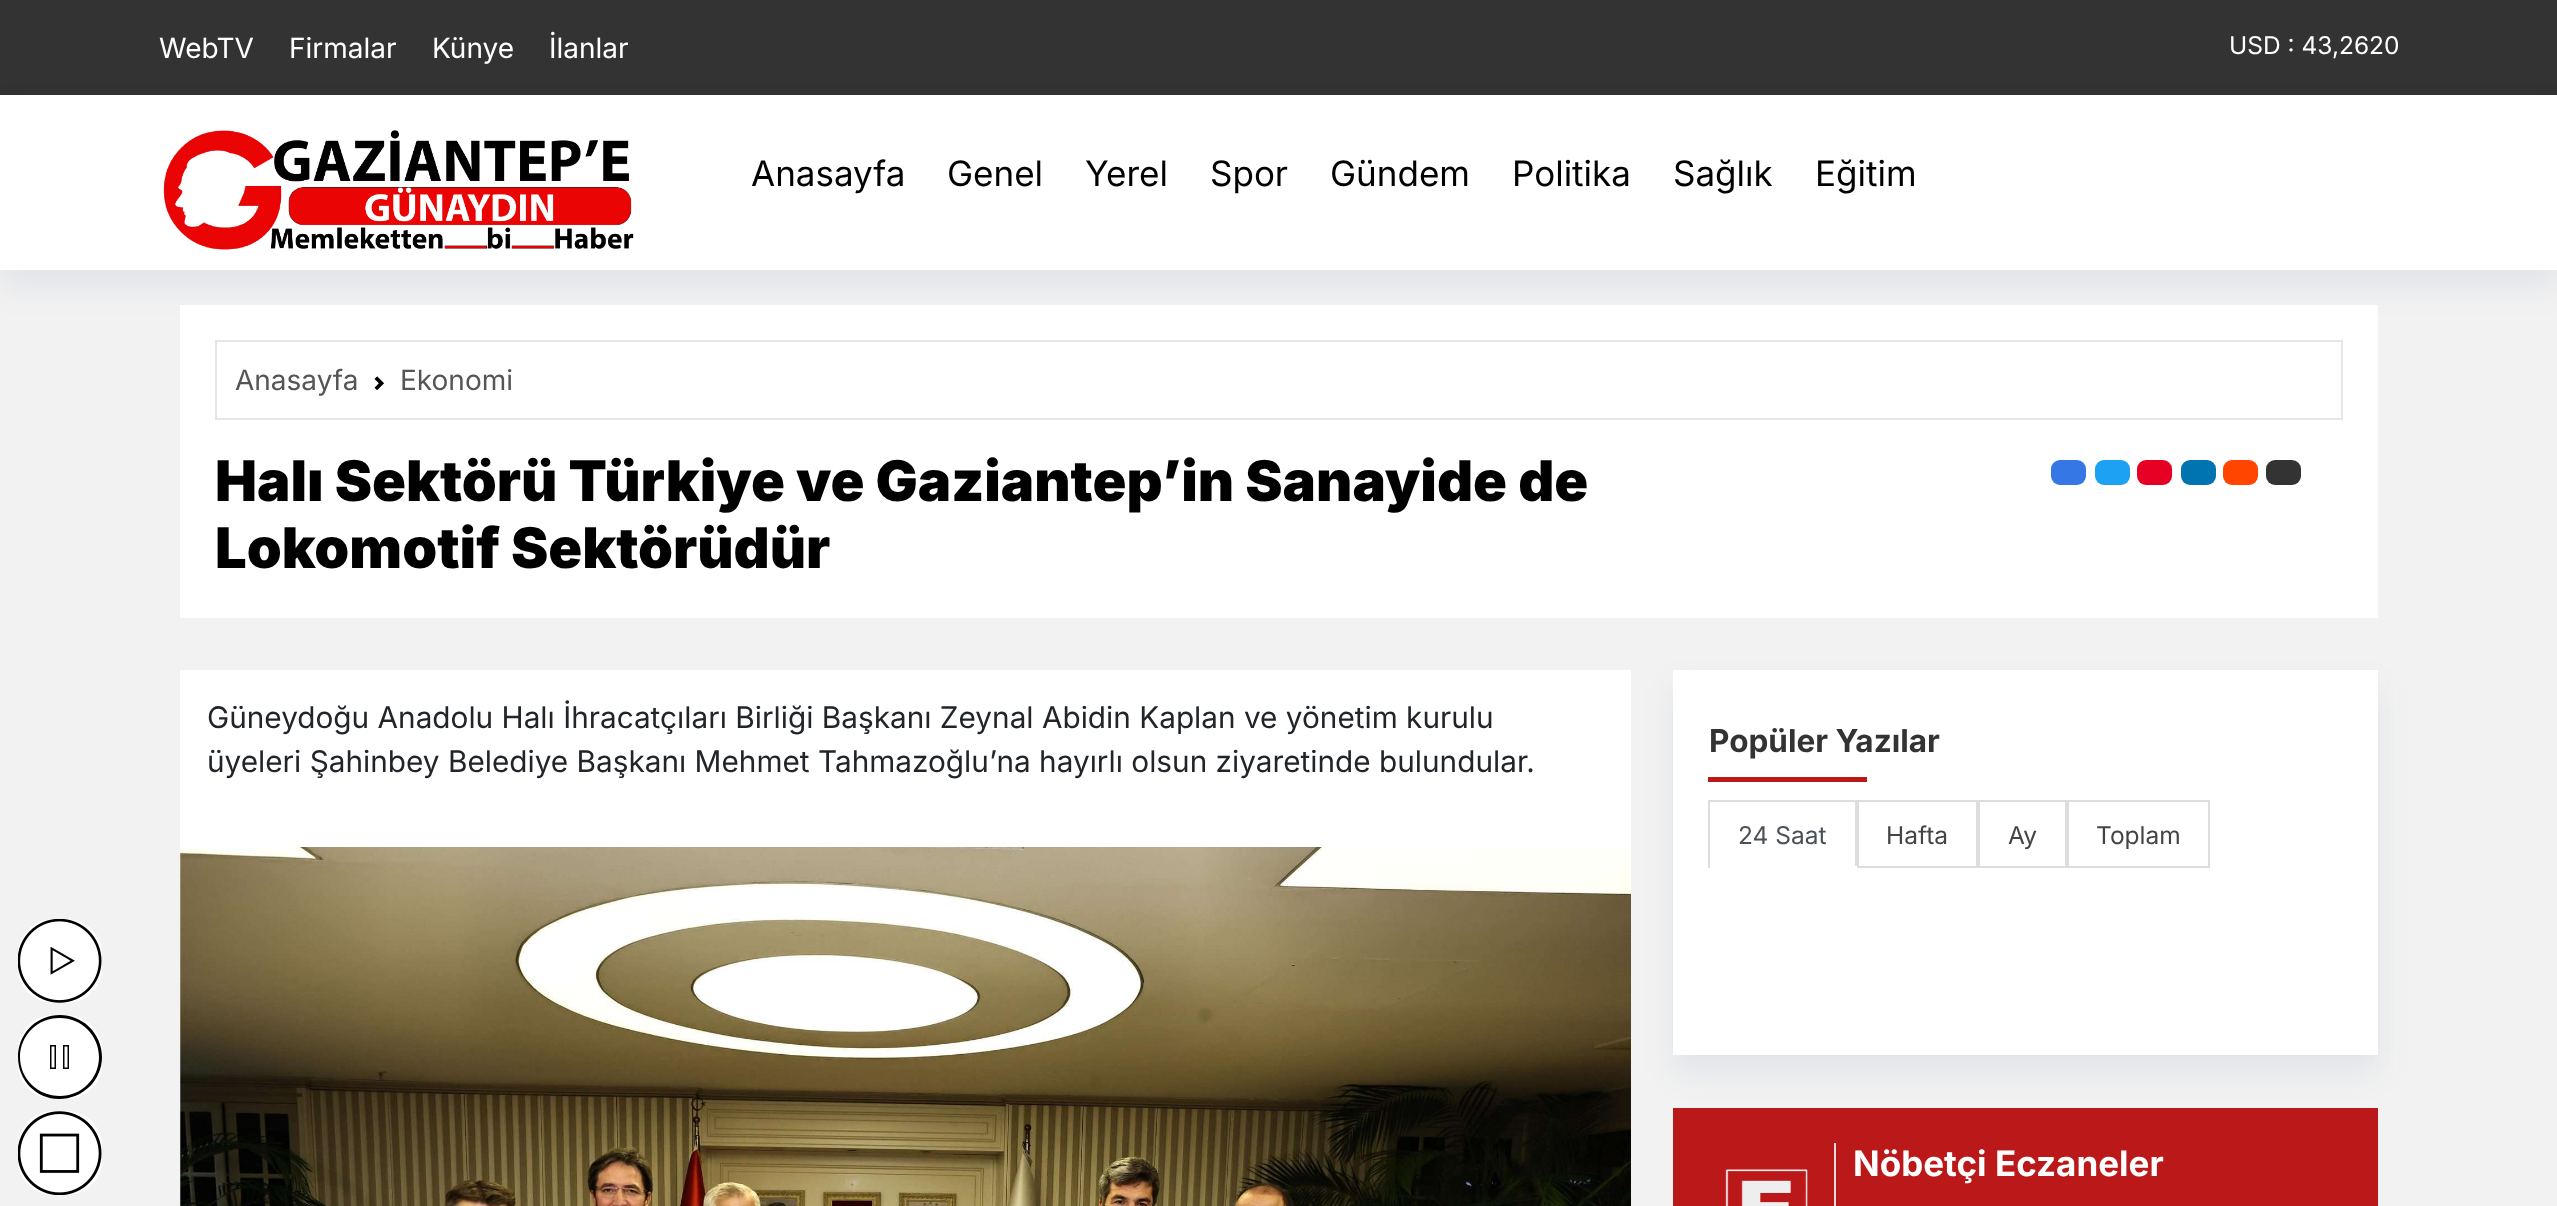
<?xml version="1.0" encoding="UTF-8"?>
<svg xmlns="http://www.w3.org/2000/svg" xmlns:xlink="http://www.w3.org/1999/xlink" width="2557" height="1206">
  <rect width="100%" height="100%" fill="#f2f2f2" />
  <rect width="2557" height="95" fill="#333333" />
  <rect y="112" width="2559" height="175" fill="#22427d" fill-opacity="0.08" filter="blur(16px)" />
  <rect y="95" width="2557" height="175" fill="#ffffff" />
  <image x="163" y="130" width="471" height="120" xlink:href="image1.png" />
  <rect x="180" y="305" width="2198" height="313" fill="#ffffff" />
  <rect x="216" y="341" width="2126" height="78" fill="none" stroke="#e7e7e7" stroke-width="2" />
  <image x="374" y="376" width="10" height="14" xlink:href="image2.png" />
  <rect x="2051" y="460" width="35" height="25" rx="9" fill="#3578e5" />
  <rect x="2095" y="460" width="35" height="25" rx="9" fill="#1da1f2" />
  <rect x="2137" y="460" width="35" height="25" rx="9" fill="#e60023" />
  <rect x="2181" y="460" width="35" height="25" rx="9" fill="#0073b1" />
  <rect x="2223" y="460" width="35" height="25" rx="9" fill="#ff4500" />
  <rect x="2266" y="460" width="35" height="25" rx="9" fill="#333333" />
  <rect x="180" y="670" width="1451" height="177" fill="#ffffff" />
  <rect x="18" y="919" width="84" height="84" rx="35" fill="#ffffff" />
  <image x="18" y="919" width="84" height="84" xlink:href="image3.png" />
  <rect x="18" y="1015" width="84" height="84" rx="35" fill="#ffffff" />
  <path d="M 60 1018 c 21 0 39 17 39 39 c 0 22 -18 39 -39 39 c -22 0 -40 -17 -40 -39 c 0 -22 18 -39 39 -39 m 1 -3 c -24 0 -42 19 -42 42 c 0 23 18 42 41 42 c 24 0 43 -19 43 -42 c 0 -23 -19 -42 -42 -42 z" fill="#000000" />
  <rect x="50.75" y="1045.75" width="4.5" height="22.5" fill="none" stroke="#000000" stroke-width="1.5" />
  <rect x="63.75" y="1045.75" width="4.5" height="22.5" fill="none" stroke="#000000" stroke-width="1.5" />
  <rect x="18" y="1111" width="84" height="84" rx="35" fill="#ffffff" />
  <image x="18" y="1111" width="84" height="84" xlink:href="image4.png" />
  <image x="180" y="847" width="1451" height="359" xlink:href="image5.png" />
  <rect x="1673" y="688" width="705" height="385" fill="#22427d" fill-opacity="0.08" filter="blur(16px)" />
  <rect x="1673" y="670" width="705" height="385" fill="#ffffff" />
  <rect x="1708" y="777" width="159" height="5" fill="#bb1919" />
  <rect x="1708" y="800" width="149" height="2" fill="#dddddd" />
  <rect x="1855" y="800" width="2" height="68" fill="#dddddd" />
  <rect x="1855" y="866" width="2" height="2" fill="#ffffff" />
  <rect x="1708" y="800" width="2" height="68" fill="#dddddd" />
  <rect x="1858" y="801" width="119" height="66" fill="none" stroke="#dddddd" stroke-width="2" />
  <rect x="1979" y="801" width="87" height="66" fill="none" stroke="#dddddd" stroke-width="2" />
  <rect x="2068" y="801" width="141" height="66" fill="none" stroke="#dddddd" stroke-width="2" />
  <rect x="1673" y="1108" width="705" height="98" fill="#bb1919" />
  <rect x="1834" y="1143" width="2" height="63" fill="#dddddd" />
  <image x="1725" y="1169" width="83" height="37" xlink:href="image6.png" />
  <text x="159" y="58" style="font-family: Inter; font-size: 28px; fill: #ffffff">WebTV</text>
  <text x="289" y="58" style="font-family: Inter; font-size: 28px; fill: #ffffff">Firmalar</text>
  <text x="432" y="58" style="font-family: Inter; font-size: 28px; fill: #ffffff">Künye</text>
  <text x="549" y="58" style="font-family: Inter; font-size: 28px; fill: #ffffff">İlanlar</text>
  <text x="2229" y="54" style="font-family: Inter; font-size: 24.5px; fill: #ffffff">USD : 43,2620</text>
  <text x="751" y="186" style="font-family: Inter; font-size: 35px; fill: #000000">Anasayfa</text>
  <text x="947" y="186" style="font-family: Inter; font-size: 35px; fill: #000000">Genel</text>
  <text x="1085" y="186" style="font-family: Inter; font-size: 35px; fill: #000000">Yerel</text>
  <text x="1210" y="186" style="font-family: Inter; font-size: 35px; fill: #000000">Spor</text>
  <text x="1330" y="186" style="font-family: Inter; font-size: 35px; fill: #000000">Gündem</text>
  <text x="1512" y="186" style="font-family: Inter; font-size: 35px; fill: #000000">Politika</text>
  <text x="1673" y="186" style="font-family: Inter; font-size: 35px; fill: #000000">Sağlık</text>
  <text x="1815" y="186" style="font-family: Inter; font-size: 35px; fill: #000000">Eğitim</text>
  <text x="235" y="390" style="font-family: Inter; font-size: 28px; fill: #555555">Anasayfa</text>
  <text x="400" y="390" style="font-family: Inter; font-size: 28px; fill: #555555">Ekonomi</text>
  <text x="215" y="501" style="font-family: Inter; font-size: 56px; font-weight: 900; fill: #000000">Halı Sektörü Türkiye ve Gaziantep’in Sanayide de</text>
  <text x="215" y="568" style="font-family: Inter; font-size: 56px; font-weight: 900; fill: #000000">Lokomotif Sektörüdür</text>
  <text x="207" y="728" style="font-family: Inter; font-size: 29.75px; fill: #212529">Güneydoğu Anadolu Halı İhracatçıları Birliği Başkanı Zeynal Abidin Kaplan ve yönetim kurulu</text>
  <text x="207" y="772" style="font-family: Inter; font-size: 29.75px; fill: #212529">üyeleri Şahinbey Belediye Başkanı Mehmet Tahmazoğlu’na hayırlı olsun ziyaretinde bulundular.</text>
  <text x="1709" y="752" style="font-family: Inter; font-size: 31.5px; font-weight: bold; fill: #333333">Popüler Yazılar</text>
  <text x="1738" y="844" style="font-family: Inter; font-size: 24.5px; fill: #495057">24 Saat</text>
  <text x="1886" y="844" style="font-family: Inter; font-size: 24.5px; fill: #444444">Hafta</text>
  <text x="2008" y="844" style="font-family: Inter; font-size: 24.5px; fill: #444444">Ay</text>
  <text x="2096" y="844" style="font-family: Inter; font-size: 24.5px; fill: #444444">Toplam</text>
  <text x="1853" y="1176" style="font-family: Inter; font-size: 35px; font-weight: bold; fill: #ffffff">Nöbetçi Eczaneler</text>
</svg>
